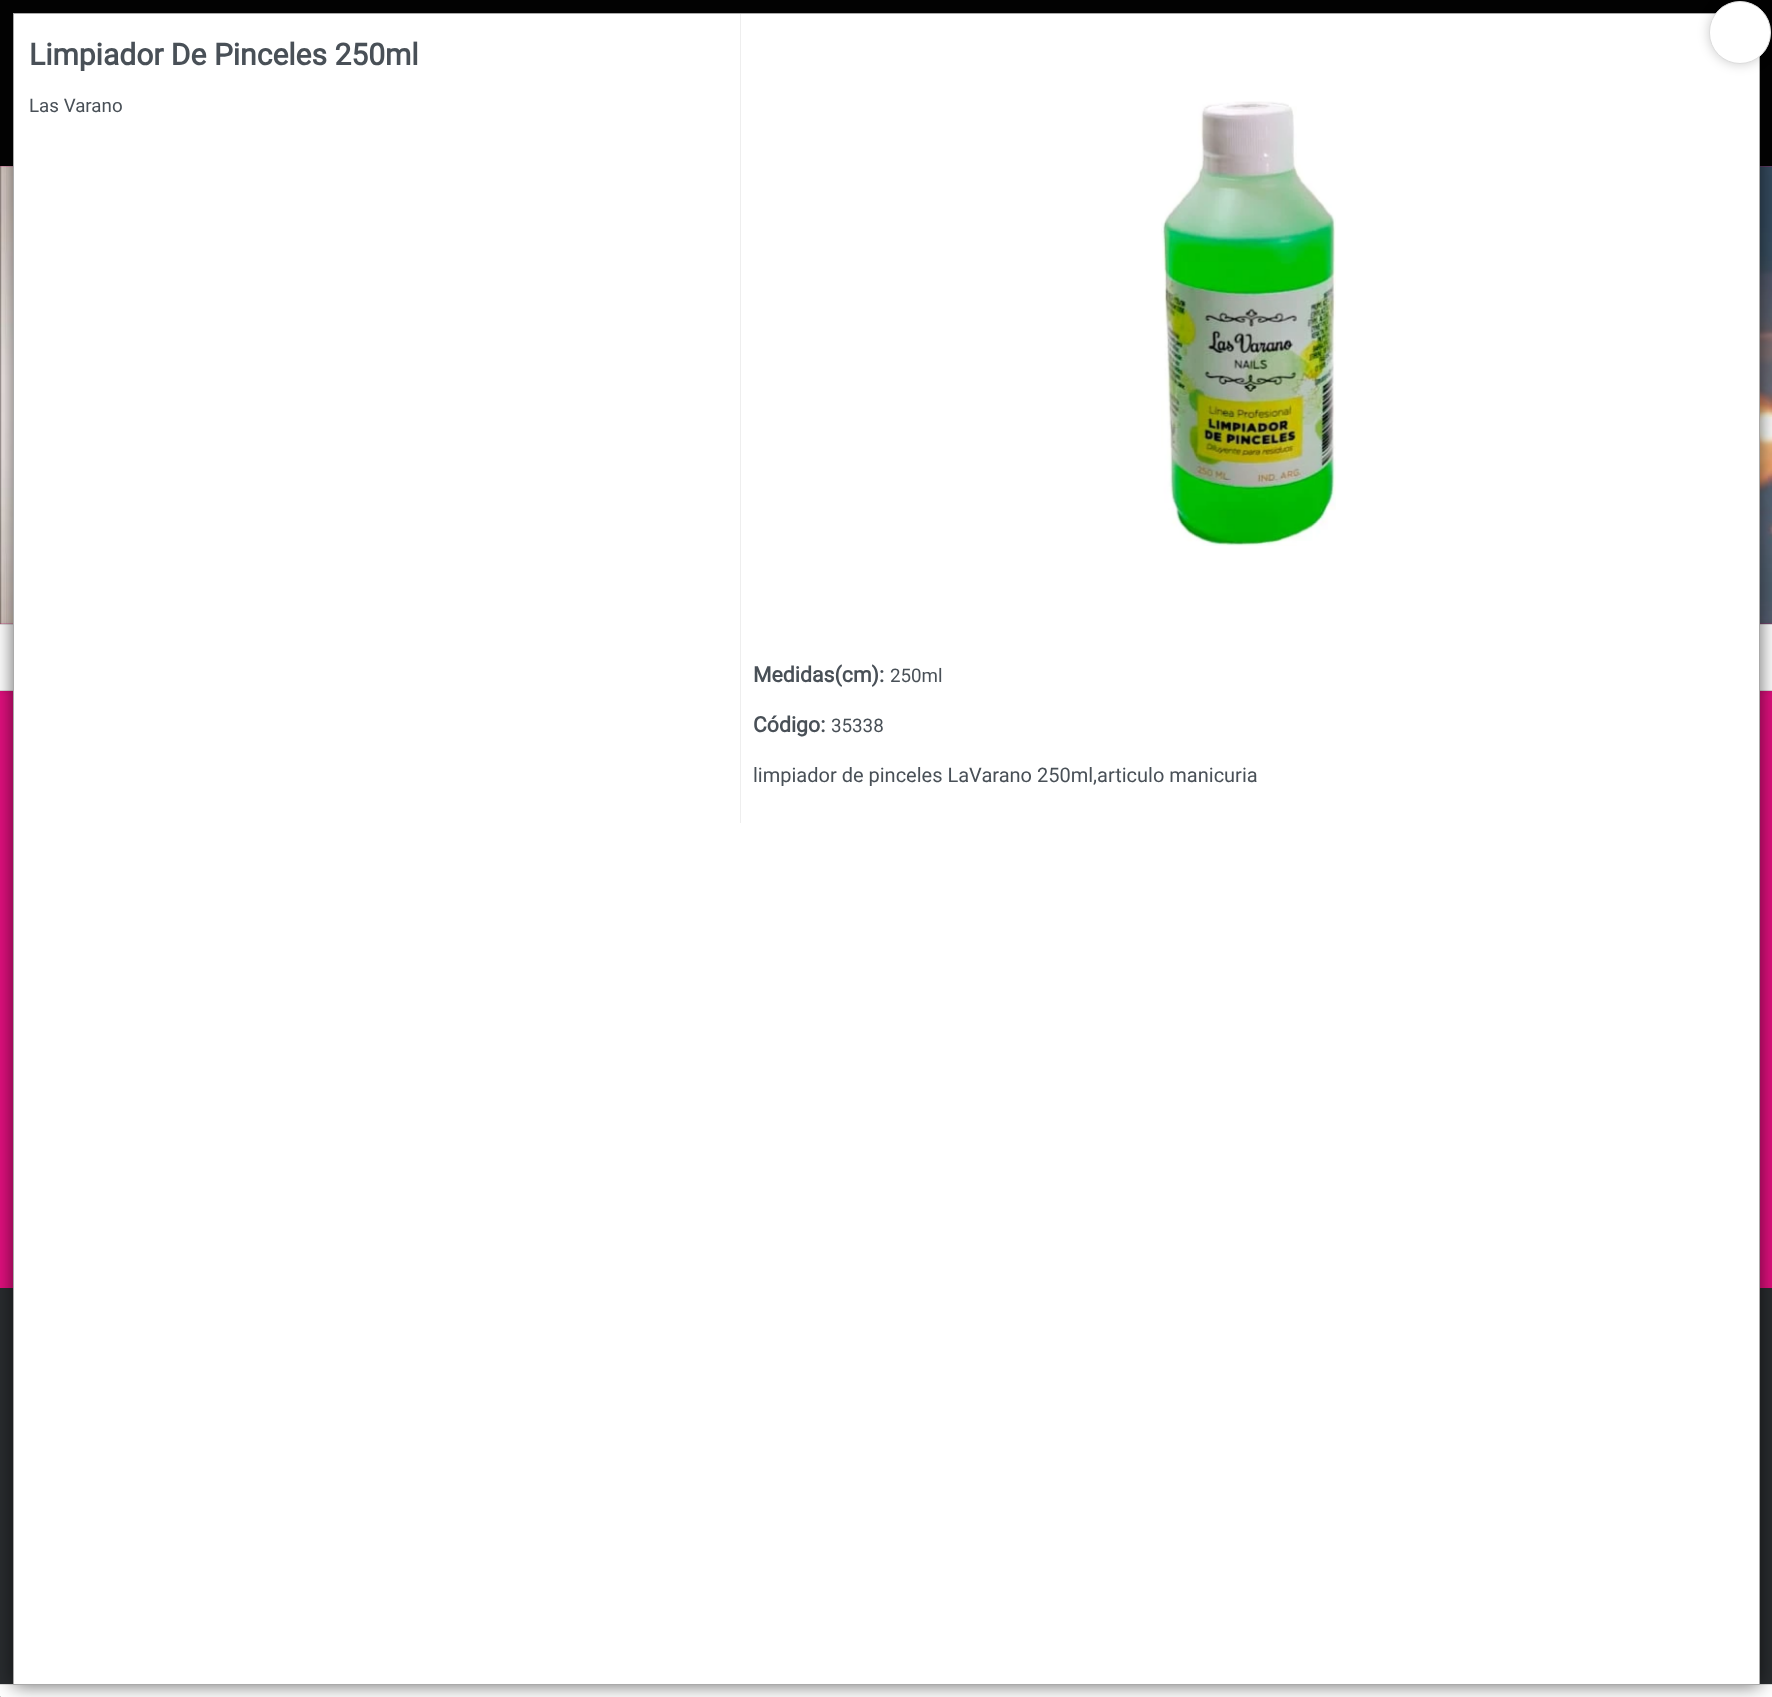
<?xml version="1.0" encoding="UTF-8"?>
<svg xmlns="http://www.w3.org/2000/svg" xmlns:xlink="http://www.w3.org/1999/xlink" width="1772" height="1697">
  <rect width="100%" height="100%" fill="#e1107e" />
  <rect width="1772" height="166" fill="#030303" />
  <image x="0" y="166" width="1772" height="458" xlink:href="image1.png" />
  <rect y="624" width="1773" height="67" fill="#000000" fill-opacity="0.1" filter="blur(2.5px)" />
  <rect y="625" width="1772" height="65" fill="#ffffff" />
  <rect y="624" width="1772" height="1" fill="#dddddd" />
  <rect y="690" width="1772" height="1" fill="#dddddd" />
  <rect y="1288" width="1772" height="409" fill="#292c2f" />
  <path d="M 0 1684 h 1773 v 11.5 c 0 1.5 -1 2.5 -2.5 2.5 h -1768 c -1.5 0 -2.5 -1 -2.5 -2.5 z" fill="#ffffff" />
  <rect y="1684" width="1772" height="1" fill="#dddddd" />
  <rect x="13" y="13" width="1747" height="1672" fill="#000000" fill-opacity="0.6" filter="blur(9.5px)" />
  <rect x="13.5" y="13.5" width="1746" height="1671" fill="#ffffff" stroke="#aaaaaa" />
  <rect x="740" y="14" width="1" height="809" fill="#eeeeee" />
  <image x="1161" y="101" width="175" height="445" xlink:href="image2.png" />
  <rect x="1709" y="1" width="62" height="63" rx="31" fill="#000000" fill-opacity="0.2" filter="blur(6px)" />
  <rect x="1709.5" y="1.5" width="61" height="62" rx="30.5" fill="#ffffff" stroke="#dddddd" />
  <text x="29" y="65" style="font-family: Roboto; font-size: 30px; font-weight: bold; fill: #495057">Limpiador De Pinceles 250ml</text>
  <text x="29" y="112" style="font-family: Roboto; font-size: 18.75px; fill: #495057">Las Varano</text>
  <text x="753" y="682" style="font-family: Roboto; font-size: 21.25px; font-weight: bold; fill: #495057">Medidas(cm):</text>
  <text x="890" y="682" style="font-family: Roboto; font-size: 18.75px; fill: #495057">250ml</text>
  <text x="753" y="732" style="font-family: Roboto; font-size: 21.25px; font-weight: bold; fill: #495057">Código:</text>
  <text x="831" y="732" style="font-family: Roboto; font-size: 18.75px; fill: #495057">35338</text>
  <text x="753" y="782" style="font-family: Roboto; font-size: 20px; fill: #495057">limpiador de pinceles LaVarano 250ml,articulo manicuria</text>
</svg>
